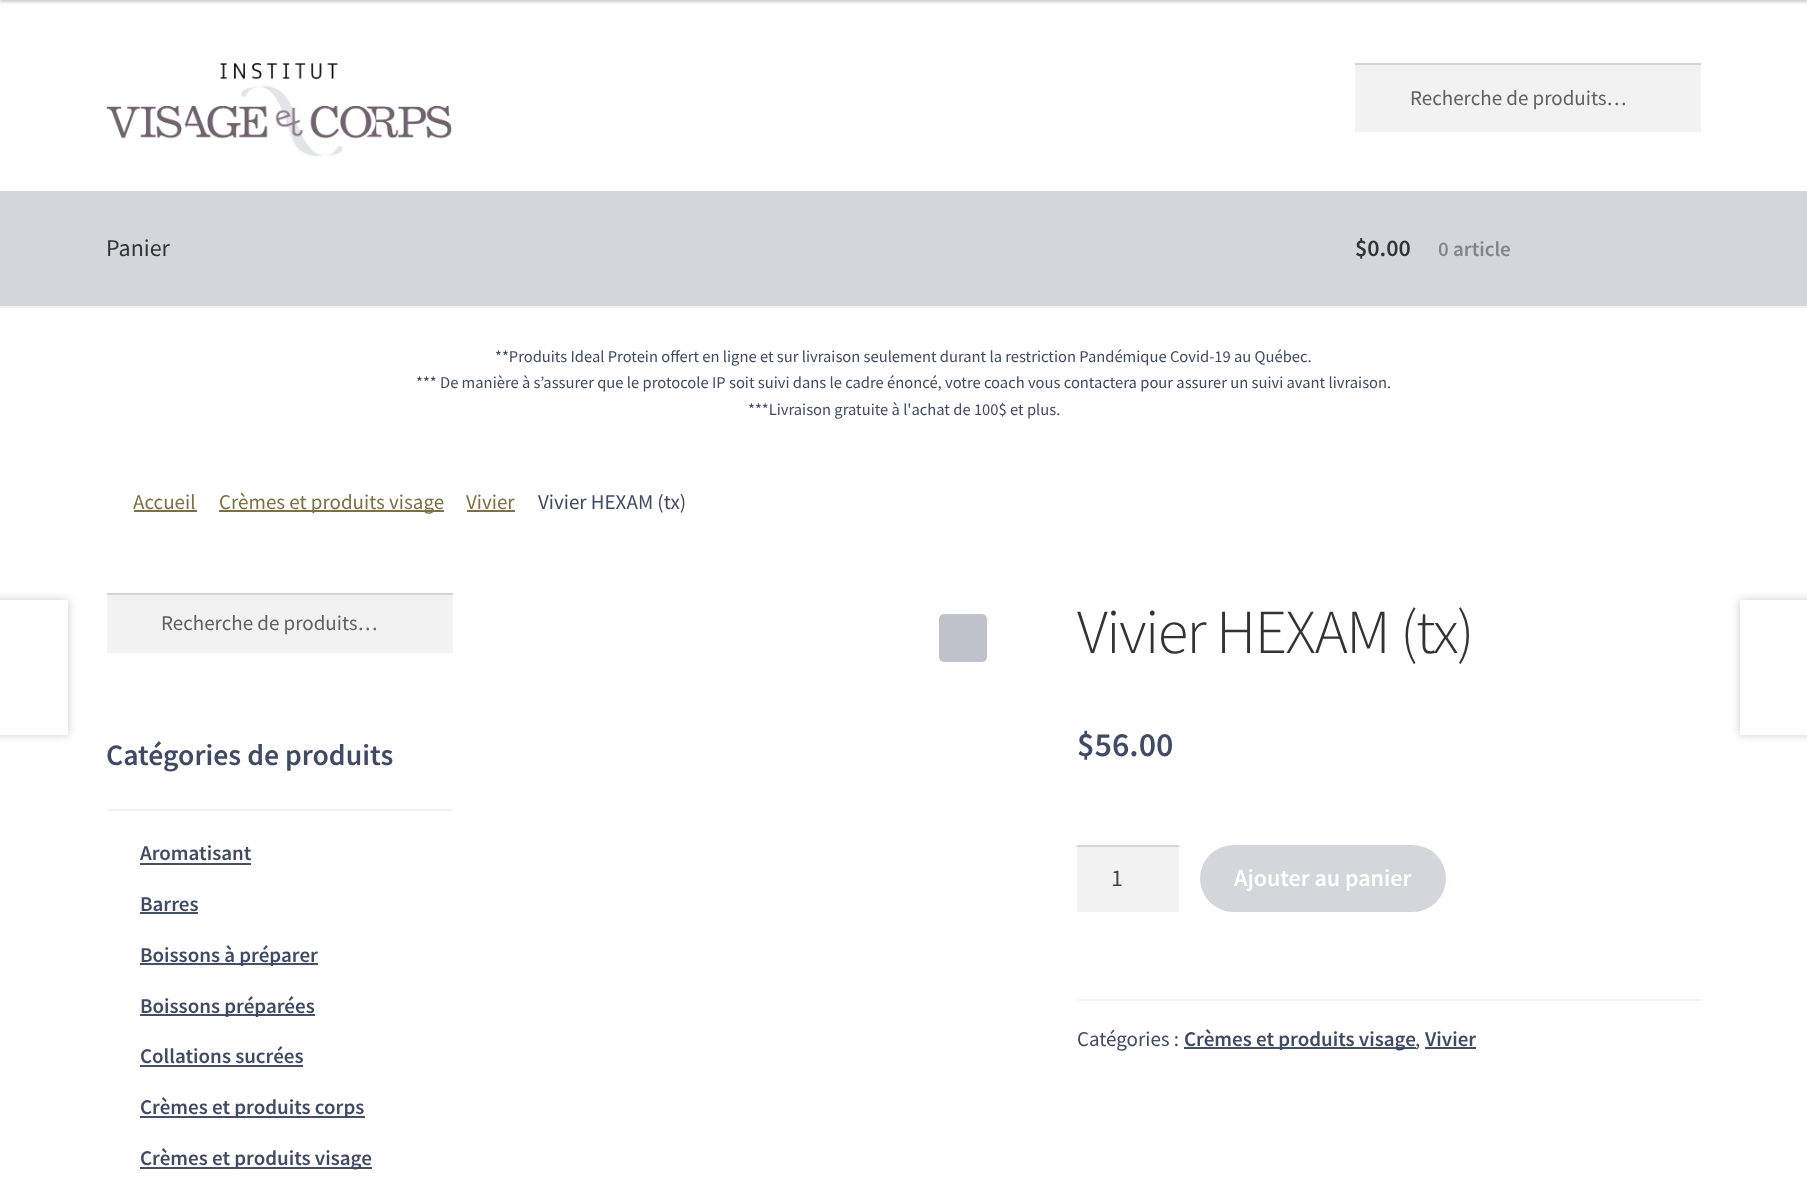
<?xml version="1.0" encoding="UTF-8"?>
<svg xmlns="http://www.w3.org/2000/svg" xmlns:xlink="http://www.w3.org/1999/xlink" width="1807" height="1198">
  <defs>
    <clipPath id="clip1"><path d="M 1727 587 h 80 v 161 h -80 z m 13 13 h 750 v 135 h -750 z" clip-rule="evenodd" /></clipPath>
  </defs>
  <rect width="100%" height="100%" fill="#ffffff" />
  <rect y="-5" width="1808" height="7" fill="#000000" fill-opacity="0.2" filter="blur(1.5px)" />
  <rect y="306" width="1807" height="2" fill="#f0f0f0" />
  <image x="106" y="63" width="346" height="93" xlink:href="image1.png" />
  <rect x="1355" y="65" width="346" height="67" fill="#f2f2f2" />
  <rect x="1355" y="63" width="346" height="2" fill="#d4d4d4" />
  <rect y="191" width="1807" height="115" fill="#d4d6dc" />
  <rect x="134" y="510" width="63" height="2" fill="#7d7046" />
  <rect x="219" y="510" width="225" height="2" fill="#7d7046" />
  <rect x="467" y="510" width="48" height="2" fill="#7d7046" />
  <rect x="107" y="595" width="346" height="58" fill="#f2f2f2" />
  <rect x="107" y="593" width="346" height="2" fill="#d4d4d4" />
  <rect x="107" y="809" width="346" height="2" fill="#f2f2f2" />
  <rect x="140" y="863" width="111" height="2" fill="#464f6a" />
  <rect x="140" y="912" width="58" height="2" fill="#464f6a" />
  <rect x="140" y="963" width="178" height="2" fill="#464f6a" />
  <rect x="140" y="1014" width="175" height="2" fill="#464f6a" />
  <rect x="140" y="1065" width="163" height="2" fill="#464f6a" />
  <rect x="140" y="1116" width="225" height="2" fill="#464f6a" />
  <rect x="140" y="1167" width="232" height="2" fill="#464f6a" />
  <rect x="-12" y="600" width="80" height="135" fill="#000000" fill-opacity="0.2" filter="blur(4px)" />
  <rect y="600" width="68" height="135" fill="#ffffff" />
  <g clip-path="url(#clip1)">
    <rect x="1740" y="600" width="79" height="135" fill="#000000" fill-opacity="0.2" filter="blur(4px)" />
  </g>
  <rect x="939" y="614" width="48" height="48" rx="5" fill="#bfc2cb" />
  <rect x="1077" y="847" width="102" height="65" fill="#f2f2f2" />
  <rect x="1077" y="845" width="102" height="2" fill="#d4d4d4" />
  <rect x="1200" y="845" width="246" height="67" rx="33.5" fill="#d4d6dc" />
  <rect x="1077" y="999" width="624" height="2" fill="#f2f2f2" />
  <rect x="1184" y="1047" width="232" height="2" fill="#464f6a" />
  <rect x="1425" y="1047" width="51" height="2" fill="#464f6a" />
  <text x="1410" y="105" style="font-family: Source Sans Pro; font-size: 21px; fill: #616161">Recherche de produits…</text>
  <text x="106" y="256" style="font-family: Source Sans Pro; font-size: 24px; fill: #333333">Panier</text>
  <text x="1355" y="256" style="font-family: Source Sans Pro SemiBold; font-size: 24px; font-weight: 600; fill: #333333">$0.00</text>
  <text x="1438" y="256" style="font-family: Source Sans Pro SemiBold; font-size: 21px; font-weight: 600; fill: #848588">0 article</text>
  <text x="495" y="362" style="font-family: Source Sans Pro; font-size: 16.5px; fill: #414a65">**Produits Ideal Protein offert en ligne et sur livraison seulement durant la restriction Pandémique Covid-19 au Québec.</text>
  <text x="416" y="388" style="font-family: Source Sans Pro; font-size: 16.5px; fill: #414a65">*** De manière à s’assurer que le protocole IP soit suivi dans le cadre énoncé, votre coach vous contactera pour assurer un suivi avant livraison.</text>
  <text x="748" y="415" style="font-family: Source Sans Pro; font-size: 16.5px; fill: #414a65">***Livraison gratuite à l'achat de 100$ et plus.</text>
  <text x="133" y="509" style="font-family: Source Sans Pro; font-size: 21px; fill: #7d7046">Accueil</text>
  <text x="219" y="509" style="font-family: Source Sans Pro; font-size: 21px; fill: #7d7046">Crèmes et produits visage</text>
  <text x="466" y="509" style="font-family: Source Sans Pro; font-size: 21px; fill: #7d7046">Vivier</text>
  <text x="538" y="509" style="font-family: Source Sans Pro; font-size: 21px; fill: #414a65">Vivier HEXAM (tx)</text>
  <text x="161" y="630" style="font-family: Source Sans Pro; font-size: 21px; fill: #616161">Recherche de produits…</text>
  <text x="106" y="765" style="font-family: Source Sans Pro SemiBold; font-size: 29.75px; font-weight: 600; fill: #414a65">Catégories de produits</text>
  <text x="140" y="860" style="font-family: Source Sans Pro SemiBold; font-size: 21px; font-weight: 600; fill: #414a65">Aromatisant</text>
  <text x="140" y="911" style="font-family: Source Sans Pro SemiBold; font-size: 21px; font-weight: 600; fill: #414a65">Barres</text>
  <text x="140" y="962" style="font-family: Source Sans Pro SemiBold; font-size: 21px; font-weight: 600; fill: #414a65">Boissons à préparer</text>
  <text x="140" y="1013" style="font-family: Source Sans Pro SemiBold; font-size: 21px; font-weight: 600; fill: #414a65">Boissons préparées</text>
  <text x="140" y="1063" style="font-family: Source Sans Pro SemiBold; font-size: 21px; font-weight: 600; fill: #414a65">Collations sucrées</text>
  <text x="140" y="1114" style="font-family: Source Sans Pro SemiBold; font-size: 21px; font-weight: 600; fill: #414a65">Crèmes et produits corps</text>
  <text x="140" y="1165" style="font-family: Source Sans Pro SemiBold; font-size: 21px; font-weight: 600; fill: #414a65">Crèmes et produits visage</text>
  <text x="1077" y="653" style="font-family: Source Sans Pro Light; font-size: 62.75px; font-weight: 300; letter-spacing: -1.5px; fill: #333333">Vivier HEXAM (tx)</text>
  <text x="1077" y="756" style="font-family: Source Sans Pro SemiBold; font-size: 34px; font-weight: 600; fill: #414a65">$56.00</text>
  <text x="1111" y="886" style="font-family: Source Sans Pro; font-size: 24px; fill: #43454b">1</text>
  <text x="1234" y="886" style="font-family: Source Sans Pro SemiBold; font-size: 24px; font-weight: 600; fill: #ffffff">Ajouter au panier</text>
  <text x="1077" y="1046" style="font-family: Source Sans Pro; font-size: 21px; fill: #414a65">Catégories :</text>
  <text x="1184" y="1046" style="font-family: Source Sans Pro SemiBold; font-size: 21px; font-weight: 600; fill: #414a65">Crèmes et produits visage</text>
  <text x="1415" y="1046" style="font-family: Source Sans Pro; font-size: 21px; fill: #414a65">,</text>
  <text x="1425" y="1046" style="font-family: Source Sans Pro SemiBold; font-size: 21px; font-weight: 600; fill: #414a65">Vivier</text>
</svg>
